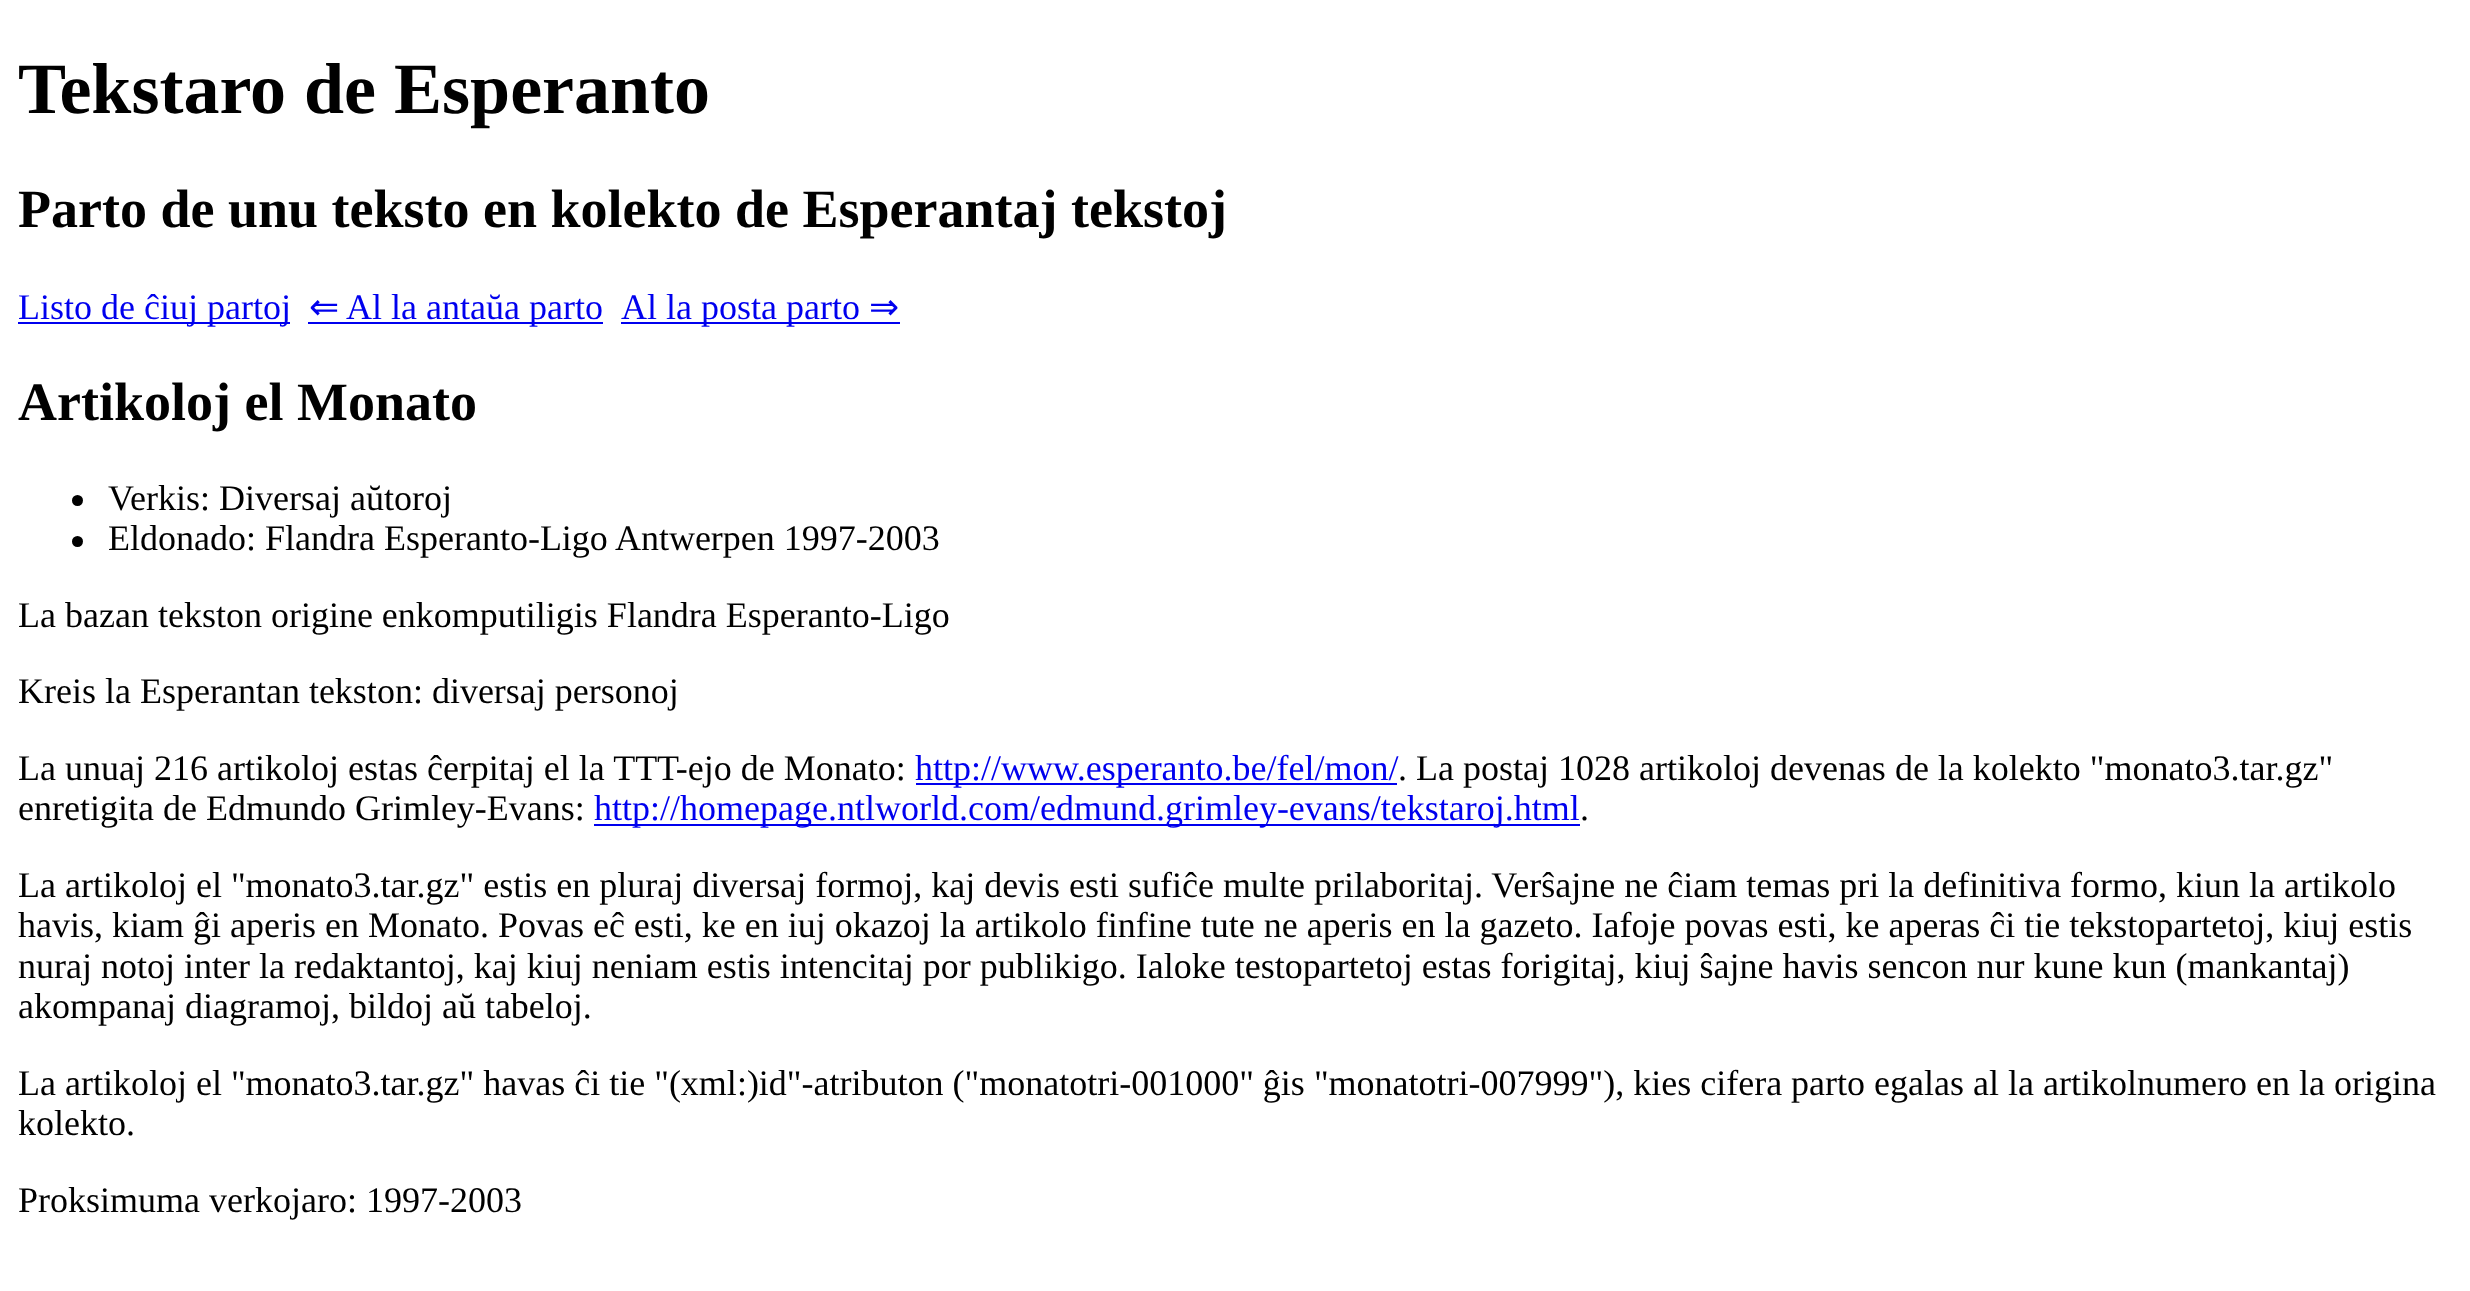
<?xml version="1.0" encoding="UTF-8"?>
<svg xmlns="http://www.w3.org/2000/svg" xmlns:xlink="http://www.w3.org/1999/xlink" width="2470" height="1291">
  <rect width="100%" height="100%" fill="#ffffff" />
  <rect x="18" y="322" width="272" height="2" fill="#0000ee" />
  <rect x="308" y="322" width="295" height="2" fill="#0000ee" />
  <rect x="621" y="322" width="279" height="2" fill="#0000ee" />
  <circle cx="77.5" cy="500.5" r="5.5" fill="#000000" />
  <circle cx="77.5" cy="541.5" r="5.5" fill="#000000" />
  <rect x="916" y="783" width="481" height="2" fill="#0000ee" />
  <rect x="594" y="824" width="986" height="2" fill="#0000ee" />
  <text x="18" y="113" style="font-family: Liberation Serif; font-size: 72px; font-weight: bold; fill: #000000">Tekstaro de Esperanto</text>
  <text x="18" y="227" style="font-family: Liberation Serif; font-size: 54px; font-weight: bold; fill: #000000">Parto de unu teksto en kolekto de Esperantaj tekstoj</text>
  <text x="18" y="319" style="font-family: Liberation Serif; font-size: 36px; fill: #0000ee">Listo de ĉiuj partoj</text>
  <text x="309" y="319" style="font-family: DejaVu Sans; font-size: 36px; fill: #0000ee">⇐</text>
  <text x="346" y="319" style="font-family: Liberation Serif; font-size: 36px; fill: #0000ee">Al la antaŭa parto</text>
  <text x="621" y="319" style="font-family: Liberation Serif; font-size: 36px; fill: #0000ee">Al la posta parto</text>
  <text x="869" y="319" style="font-family: DejaVu Sans; font-size: 36px; fill: #0000ee">⇒</text>
  <text x="18" y="420" style="font-family: Liberation Serif; font-size: 54px; font-weight: bold; fill: #000000">Artikoloj el Monato</text>
  <text x="108" y="510" style="font-family: Liberation Serif; font-size: 36px; fill: #000000">Verkis: Diversaj aŭtoroj</text>
  <text x="108" y="550" style="font-family: Liberation Serif; font-size: 36px; fill: #000000">Eldonado: Flandra Esperanto-Ligo Antwerpen 1997-2003</text>
  <text x="18" y="627" style="font-family: Liberation Serif; font-size: 36px; fill: #000000">La bazan tekston origine enkomputiligis Flandra Esperanto-Ligo</text>
  <text x="18" y="703" style="font-family: Liberation Serif; font-size: 36px; fill: #000000">Kreis la Esperantan tekston: diversaj personoj</text>
  <text x="18" y="780" style="font-family: Liberation Serif; font-size: 36px; fill: #000000">La unuaj 216 artikoloj estas ĉerpitaj el la TTT-ejo de Monato:</text>
  <text x="915" y="780" style="font-family: Liberation Serif; font-size: 36px; fill: #0000ee">http://www.esperanto.be/fel/mon/</text>
  <text x="1398" y="780" style="font-family: Liberation Serif; font-size: 36px; fill: #000000">. La postaj 1028 artikoloj devenas de la kolekto "monato3.tar.gz"</text>
  <text x="18" y="820" style="font-family: Liberation Serif; font-size: 36px; fill: #000000">enretigita de Edmundo Grimley-Evans:</text>
  <text x="594" y="820" style="font-family: Liberation Serif; font-size: 36px; fill: #0000ee">http://homepage.ntlworld.com/edmund.grimley-evans/tekstaroj.html</text>
  <text x="1580" y="820" style="font-family: Liberation Serif; font-size: 36px; fill: #000000">.</text>
  <text x="18" y="897" style="font-family: Liberation Serif; font-size: 36px; fill: #000000">La artikoloj el "monato3.tar.gz" estis en pluraj diversaj formoj, kaj devis esti sufiĉe multe prilaboritaj. Verŝajne ne ĉiam temas pri la definitiva formo, kiun la artikolo</text>
  <text x="18" y="937" style="font-family: Liberation Serif; font-size: 36px; fill: #000000">havis, kiam ĝi aperis en Monato. Povas eĉ esti, ke en iuj okazoj la artikolo finfine tute ne aperis en la gazeto. Iafoje povas esti, ke aperas ĉi tie tekstopartetoj, kiuj estis</text>
  <text x="18" y="978" style="font-family: Liberation Serif; font-size: 36px; fill: #000000">nuraj notoj inter la redaktantoj, kaj kiuj neniam estis intencitaj por publikigo. Ialoke testopartetoj estas forigitaj, kiuj ŝajne havis sencon nur kune kun (mankantaj)</text>
  <text x="18" y="1018" style="font-family: Liberation Serif; font-size: 36px; fill: #000000">akompanaj diagramoj, bildoj aŭ tabeloj.</text>
  <text x="18" y="1095" style="font-family: Liberation Serif; font-size: 36px; fill: #000000">La artikoloj el "monato3.tar.gz" havas ĉi tie "(xml:)id"-atributon ("monatotri-001000" ĝis "monatotri-007999"), kies cifera parto egalas al la artikolnumero en la origina</text>
  <text x="18" y="1135" style="font-family: Liberation Serif; font-size: 36px; fill: #000000">kolekto.</text>
  <text x="18" y="1212" style="font-family: Liberation Serif; font-size: 36px; fill: #000000">Proksimuma verkojaro: 1997-2003</text>
</svg>
